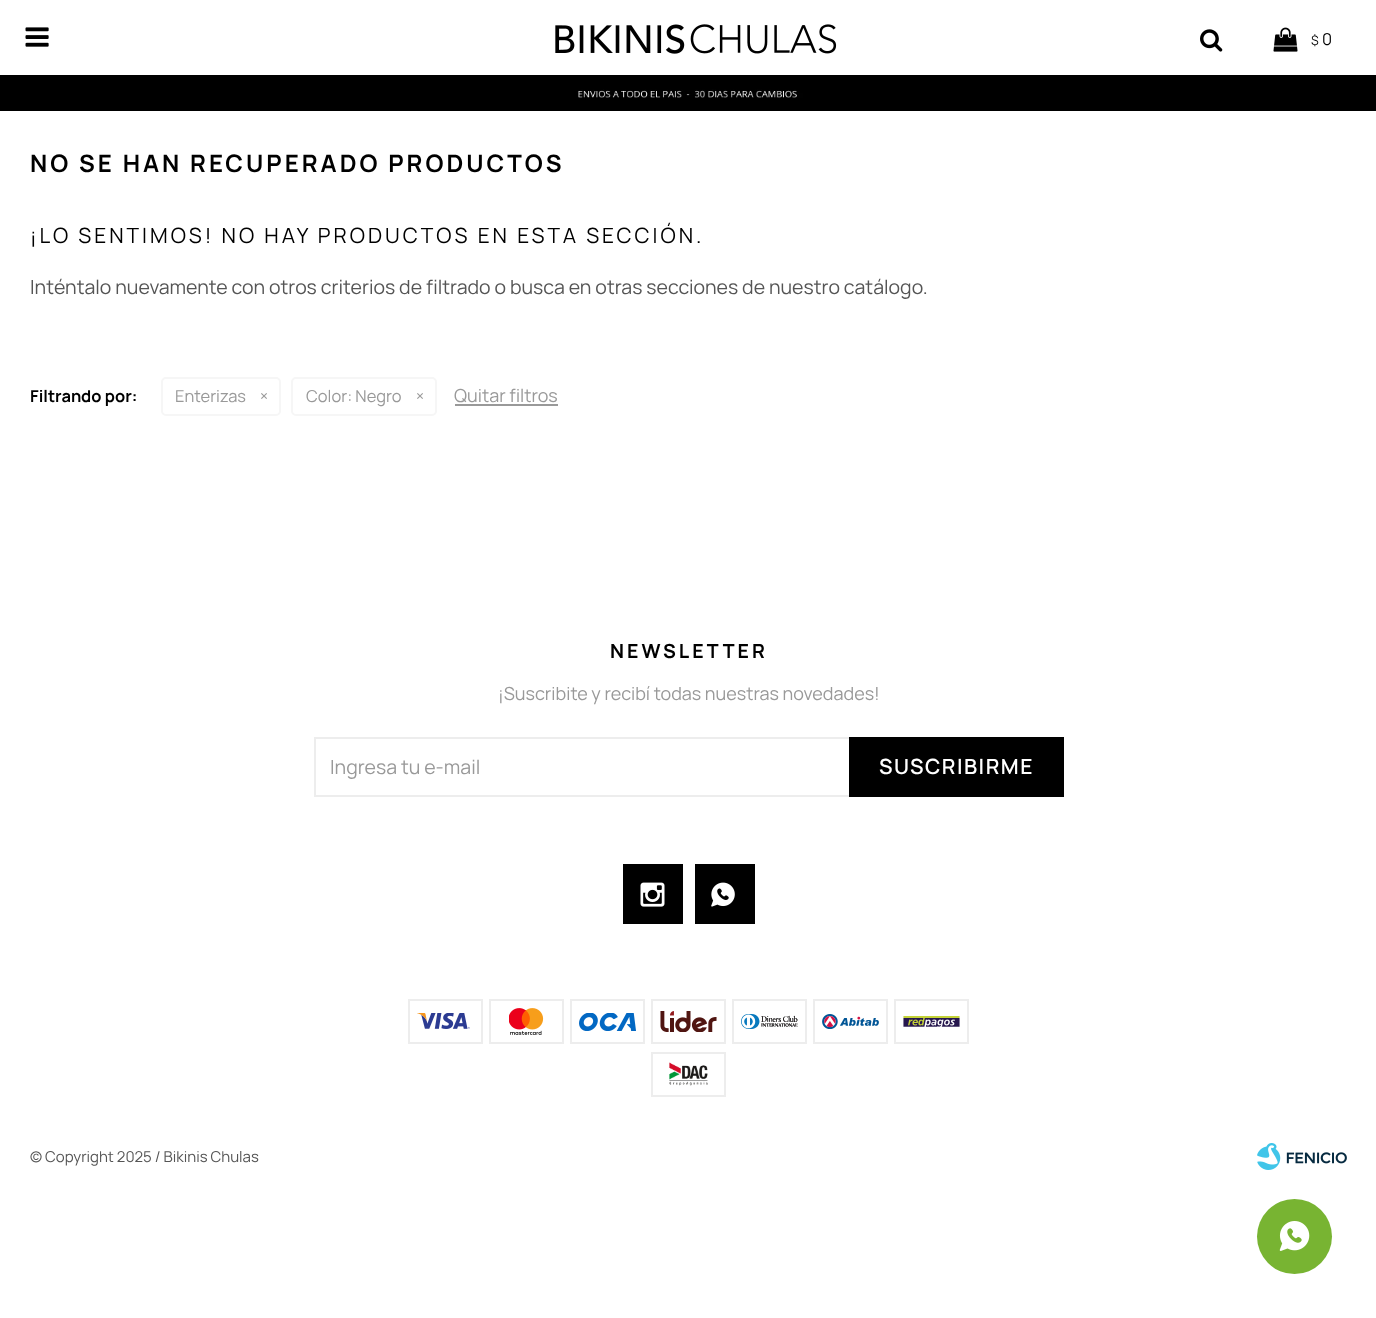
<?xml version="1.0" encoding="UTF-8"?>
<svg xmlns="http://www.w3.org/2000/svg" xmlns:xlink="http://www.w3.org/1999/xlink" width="1376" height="1318">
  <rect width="100%" height="100%" fill="#ffffff" />
  <image x="25" y="27" width="24" height="20" xlink:href="image1.png" />
  <image x="555" y="24" width="282" height="30" xlink:href="image2.png" />
  <image x="1200" y="29" width="23" height="23" xlink:href="image3.png" />
  <image x="1273" y="27" width="25" height="25" xlink:href="image4.png" />
  <image x="0" y="75" width="1376" height="36" xlink:href="image5.png" />
  <rect x="162" y="378" width="118" height="37" rx="4" fill="none" stroke="#f6f6f6" stroke-width="2" />
  <rect x="292" y="378" width="144" height="37" rx="4" fill="none" stroke="#f6f6f6" stroke-width="2" />
  <rect x="455" y="404" width="103" height="2" fill="#999999" />
  <rect x="315" y="738" width="748" height="58" fill="none" stroke="#ededed" stroke-width="2" />
  <rect x="849" y="737" width="215" height="60" fill="#000000" />
  <rect x="623" y="864" width="60" height="60" fill="#000000" />
  <image x="640" y="882" width="25" height="25" xlink:href="image6.png" />
  <rect x="695" y="864" width="60" height="60" fill="#000000" />
  <image x="711" y="882" width="24" height="25" xlink:href="image7.png" />
  <rect x="409" y="1000" width="73" height="43" fill="none" stroke="#ededed" stroke-width="2" />
  <image x="417" y="1013" width="53" height="16" xlink:href="image8.png" />
  <rect x="490" y="1000" width="73" height="43" fill="none" stroke="#ededed" stroke-width="2" />
  <image x="509" y="1008" width="35" height="27" xlink:href="image9.png" />
  <rect x="571" y="1000" width="73" height="43" fill="none" stroke="#ededed" stroke-width="2" />
  <image x="579" y="1013" width="57" height="18" xlink:href="image10.png" />
  <rect x="652" y="1000" width="73" height="43" fill="none" stroke="#ededed" stroke-width="2" />
  <image x="660" y="1011" width="57" height="21" xlink:href="image11.png" />
  <rect x="733" y="1000" width="73" height="43" fill="none" stroke="#ededed" stroke-width="2" />
  <image x="741" y="1014" width="57" height="15" xlink:href="image12.png" />
  <rect x="814" y="1000" width="73" height="43" fill="none" stroke="#ededed" stroke-width="2" />
  <image x="822" y="1014" width="57" height="15" xlink:href="image13.png" />
  <rect x="895" y="1000" width="73" height="43" fill="none" stroke="#ededed" stroke-width="2" />
  <image x="903" y="1016" width="57" height="11" xlink:href="image14.png" />
  <rect x="652" y="1053" width="73" height="43" fill="none" stroke="#ededed" stroke-width="2" />
  <image x="669" y="1062" width="39" height="24" xlink:href="image15.png" />
  <image x="1257" y="1143" width="90" height="27" xlink:href="image16.png" />
  <circle cx="1294.5" cy="1236.5" r="37.5" fill="#78b432" />
  <image x="1279" y="1221" width="31" height="30" xlink:href="image17.png" />
  <text x="1311" y="45" style="font-family: Manrope; font-size: 13px; fill: #000000">$</text>
  <text x="1322" y="45" style="font-family: Manrope; font-size: 16.5px; fill: #000000">0</text>
  <text x="30" y="172" style="font-family: Manrope; font-size: 24px; font-weight: bold; letter-spacing: 3px; fill: #000000">NO SE HAN RECUPERADO PRODUCTOS</text>
  <text x="30" y="243" style="font-family: Manrope; font-size: 21px; letter-spacing: 3px; fill: #000000">¡LO SENTIMOS! NO HAY PRODUCTOS EN ESTA SECCIÓN.</text>
  <text x="30" y="294" style="font-family: Manrope; font-size: 19.5px; fill: #555555">Inténtalo nuevamente con otros criterios de filtrado o busca en otras secciones de nuestro catálogo.</text>
  <text x="30" y="402" style="font-family: Manrope; font-size: 16.5px; font-weight: bold; fill: #000000">Filtrando por:</text>
  <text x="175" y="402" style="font-family: Manrope; font-size: 16.5px; fill: #999999">Enterizas</text>
  <text x="260" y="402" style="font-family: Manrope; font-size: 16.5px; fill: #999999">×</text>
  <text x="306" y="402" style="font-family: Manrope; font-size: 16.5px; fill: #999999">Color: Negro</text>
  <text x="416" y="402" style="font-family: Manrope; font-size: 16.5px; fill: #999999">×</text>
  <text x="454" y="402" style="font-family: Manrope; font-size: 18px; fill: #999999">Quitar filtros</text>
  <text x="610" y="658" style="font-family: Manrope; font-size: 19.5px; font-weight: bold; letter-spacing: 3px; fill: #000000">NEWSLETTER</text>
  <text x="498" y="700" style="font-family: Manrope; font-size: 18px; fill: #999999">¡Suscribite y recibí todas nuestras novedades!</text>
  <text x="330" y="774" style="font-family: Manrope; font-size: 19.5px; fill: #999999">Ingresa tu e-mail</text>
  <text x="879" y="774" style="font-family: Manrope; font-size: 21px; font-weight: 600; letter-spacing: 1.5px; fill: #ffffff">SUSCRIBIRME</text>
  <text x="30" y="1162" style="font-family: Manrope; font-size: 15px; fill: #555555">© Copyright 2025 / Bikinis Chulas</text>
</svg>
